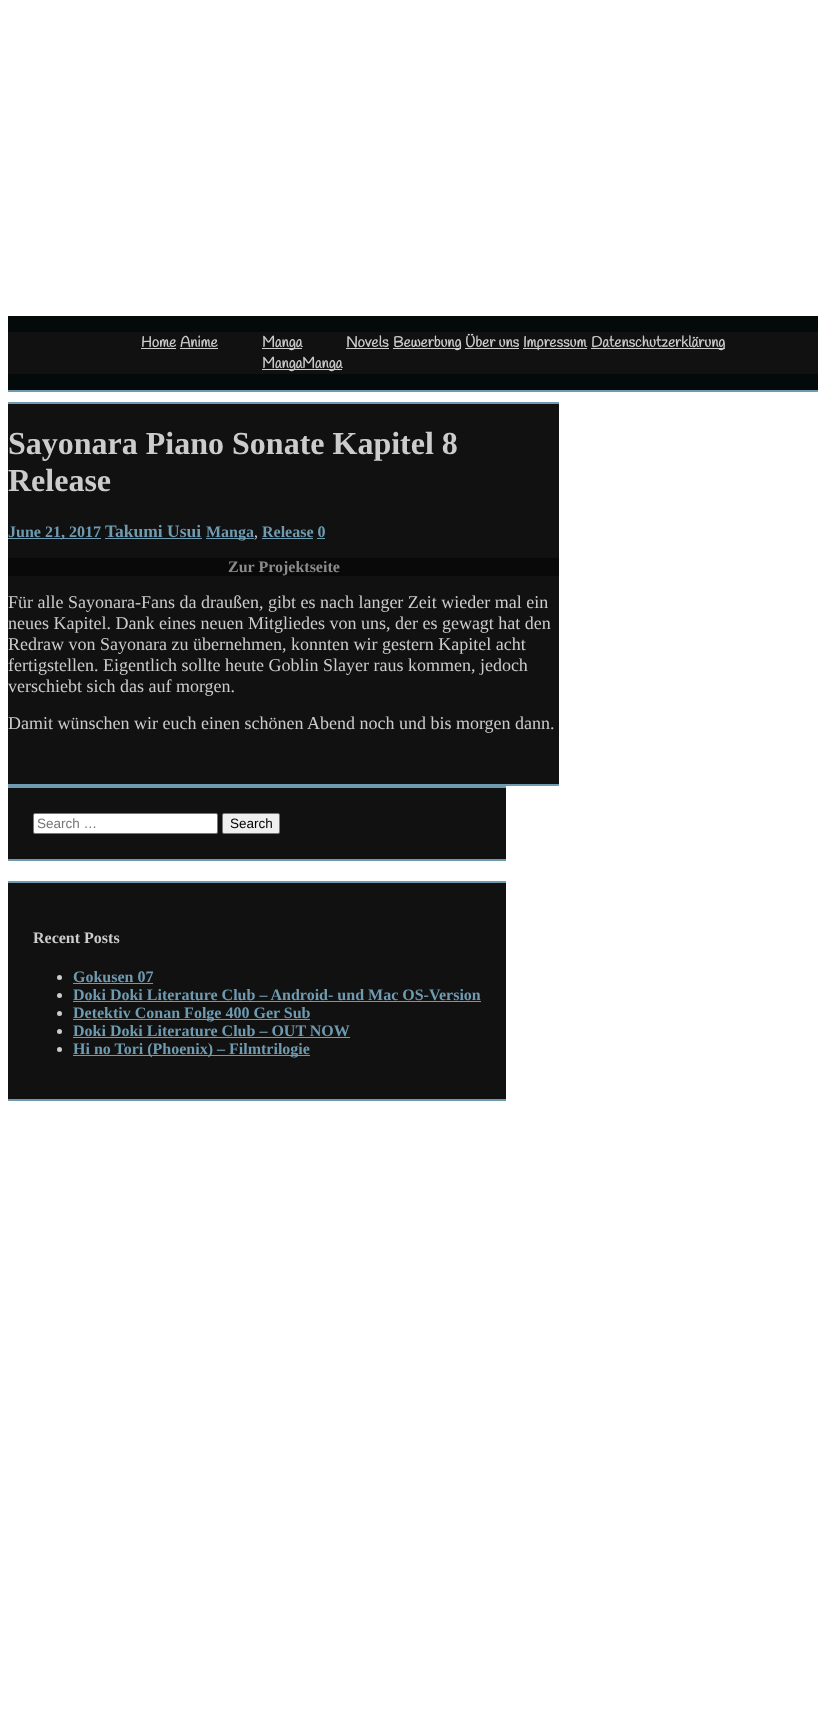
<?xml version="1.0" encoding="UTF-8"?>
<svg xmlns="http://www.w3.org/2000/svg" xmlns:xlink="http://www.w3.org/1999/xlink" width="826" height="1732">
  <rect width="100%" height="100%" fill="#ffffff" />
  <rect x="8" y="316" width="810" height="74" fill="#040909" />
  <rect x="8" y="390" width="810" height="2" fill="#6f9bb1" />
  <rect x="8" y="332" width="810" height="42" fill="#111111" />
  <rect x="141" y="348" width="35" height="1" fill="#cccccc" />
  <rect x="180" y="348" width="38" height="1" fill="#cccccc" />
  <rect x="262" y="348" width="40" height="1" fill="#cccccc" />
  <rect x="262" y="369" width="40" height="1" fill="#cccccc" />
  <rect x="302" y="369" width="40" height="1" fill="#cccccc" />
  <rect x="346" y="348" width="43" height="1" fill="#cccccc" />
  <rect x="393" y="348" width="68" height="1" fill="#cccccc" />
  <rect x="465" y="348" width="54" height="1" fill="#cccccc" />
  <rect x="523" y="348" width="64" height="1" fill="#cccccc" />
  <rect x="591" y="348" width="134" height="1" fill="#cccccc" />
  <rect x="8" y="404" width="551" height="380" fill="#111111" />
  <rect x="8" y="402" width="551" height="2" fill="#6f9bb1" />
  <rect x="8" y="784" width="551" height="2" fill="#6f9bb1" />
  <rect x="8" y="538" width="93" height="1" fill="#6f9bb1" />
  <rect x="105" y="538" width="97" height="1" fill="#6f9bb1" />
  <rect x="206" y="538" width="48" height="1" fill="#6f9bb1" />
  <rect x="262" y="538" width="51" height="1" fill="#6f9bb1" />
  <rect x="317" y="538" width="8" height="1" fill="#6f9bb1" />
  <rect x="8" y="558" width="551" height="18" fill="#090909" />
  <rect x="8" y="788" width="498" height="71" fill="#111111" />
  <rect x="8" y="786" width="498" height="2" fill="#6f9bb1" />
  <rect x="8" y="859" width="498" height="2" fill="#6f9bb1" />
  <rect x="33.5" y="813.5" width="184" height="20" rx="1.5" fill="#ffffff" stroke="#767676" />
  <rect x="222.5" y="813.5" width="57" height="20" rx="1.5" fill="#efefef" stroke="#767676" />
  <rect x="8" y="883" width="498" height="216" fill="#111111" />
  <rect x="8" y="881" width="498" height="2" fill="#6f9bb1" />
  <rect x="8" y="1099" width="498" height="2" fill="#6f9bb1" />
  <circle cx="59.5" cy="977.5" r="2.5" fill="#cccccc" />
  <rect x="73" y="983" width="80" height="1" fill="#6f9bb1" />
  <circle cx="59.5" cy="995.5" r="2.5" fill="#cccccc" />
  <rect x="73" y="1001" width="408" height="1" fill="#6f9bb1" />
  <circle cx="59.5" cy="1013.5" r="2.5" fill="#cccccc" />
  <rect x="73" y="1019" width="237" height="1" fill="#6f9bb1" />
  <circle cx="59.5" cy="1031.5" r="2.5" fill="#cccccc" />
  <rect x="73" y="1037" width="277" height="1" fill="#6f9bb1" />
  <circle cx="59.5" cy="1049.5" r="2.5" fill="#cccccc" />
  <rect x="73" y="1055" width="237" height="1" fill="#6f9bb1" />
  <text x="141" y="347" style="font-family: Handlee; font-size: 15px; font-weight: bold; fill: #cccccc">Home</text>
  <text x="180" y="347" style="font-family: Handlee; font-size: 15px; font-weight: bold; fill: #cccccc">Anime</text>
  <text x="262" y="347" style="font-family: Handlee; font-size: 15px; font-weight: bold; fill: #cccccc">Manga</text>
  <text x="262" y="368" style="font-family: Handlee; font-size: 15px; font-weight: bold; fill: #cccccc">Manga</text>
  <text x="302" y="368" style="font-family: Handlee; font-size: 15px; font-weight: bold; fill: #cccccc">Manga</text>
  <text x="346" y="347" style="font-family: Handlee; font-size: 15px; font-weight: bold; fill: #cccccc">Novels</text>
  <text x="393" y="347" style="font-family: Handlee; font-size: 15px; font-weight: bold; fill: #cccccc">Bewerbung</text>
  <text x="465" y="347" style="font-family: Handlee; font-size: 15px; font-weight: bold; fill: #cccccc">Über uns</text>
  <text x="523" y="347" style="font-family: Handlee; font-size: 15px; font-weight: bold; fill: #cccccc">Impressum</text>
  <text x="591" y="347" style="font-family: Handlee; font-size: 15px; font-weight: bold; fill: #cccccc">Datenschutzerklärung</text>
  <text x="8" y="454" style="font-family: Liberation Serif; font-size: 32px; font-weight: bold; fill: #cccccc">Sayonara Piano Sonate Kapitel 8</text>
  <text x="8" y="491" style="font-family: Liberation Serif; font-size: 32px; font-weight: bold; fill: #cccccc">Release</text>
  <text x="8" y="537" style="font-family: Liberation Serif; font-size: 16px; font-weight: bold; fill: #6f9bb1">June 21, 2017</text>
  <text x="105" y="537" style="font-family: Liberation Serif; font-size: 17.5px; font-weight: bold; fill: #6f9bb1">Takumi Usui</text>
  <text x="206" y="537" style="font-family: Liberation Serif; font-size: 16px; font-weight: bold; fill: #6f9bb1">Manga</text>
  <text x="254" y="537" style="font-family: Liberation Serif; font-size: 16px; fill: #cccccc">,</text>
  <text x="262" y="537" style="font-family: Liberation Serif; font-size: 16px; font-weight: bold; fill: #6f9bb1">Release 0</text>
  <text x="228" y="572" style="font-family: Liberation Serif; font-size: 16px; font-weight: bold; fill: #8b8b8b">Zur Projektseite</text>
  <text x="8" y="608" style="font-family: Liberation Serif; font-size: 18px; fill: #cccccc">Für alle Sayonara-Fans da draußen, gibt es nach langer Zeit wieder mal ein</text>
  <text x="8" y="629" style="font-family: Liberation Serif; font-size: 18px; fill: #cccccc">neues Kapitel. Dank eines neuen Mitgliedes von uns, der es gewagt hat den</text>
  <text x="8" y="650" style="font-family: Liberation Serif; font-size: 18px; fill: #cccccc">Redraw von Sayonara zu übernehmen, konnten wir gestern Kapitel acht</text>
  <text x="8" y="671" style="font-family: Liberation Serif; font-size: 18px; fill: #cccccc">fertigstellen. Eigentlich sollte heute Goblin Slayer raus kommen, jedoch</text>
  <text x="8" y="692" style="font-family: Liberation Serif; font-size: 18px; fill: #cccccc">verschiebt sich das auf morgen.</text>
  <text x="8" y="729" style="font-family: Liberation Serif; font-size: 18px; fill: #cccccc">Damit wünschen wir euch einen schönen Abend noch und bis morgen dann.</text>
  <text x="37" y="828" style="font-family: Liberation Sans; font-size: 13.5px; fill: #757575">Search …</text>
  <text x="230" y="828" style="font-family: Liberation Sans; font-size: 13.5px; fill: #000000">Search</text>
  <text x="33" y="943" style="font-family: Liberation Serif; font-size: 16px; font-weight: bold; fill: #cccccc">Recent Posts</text>
  <text x="73" y="982" style="font-family: Liberation Serif; font-size: 16px; font-weight: bold; fill: #6f9bb1">Gokusen 07</text>
  <text x="73" y="1000" style="font-family: Liberation Serif; font-size: 16px; font-weight: bold; fill: #6f9bb1">Doki Doki Literature Club – Android- und Mac OS-Version</text>
  <text x="73" y="1018" style="font-family: Liberation Serif; font-size: 16px; font-weight: bold; fill: #6f9bb1">Detektiv Conan Folge 400 Ger Sub</text>
  <text x="73" y="1036" style="font-family: Liberation Serif; font-size: 16px; font-weight: bold; fill: #6f9bb1">Doki Doki Literature Club – OUT NOW</text>
  <text x="73" y="1054" style="font-family: Liberation Serif; font-size: 16px; font-weight: bold; fill: #6f9bb1">Hi no Tori (Phoenix) – Filmtrilogie</text>
</svg>
